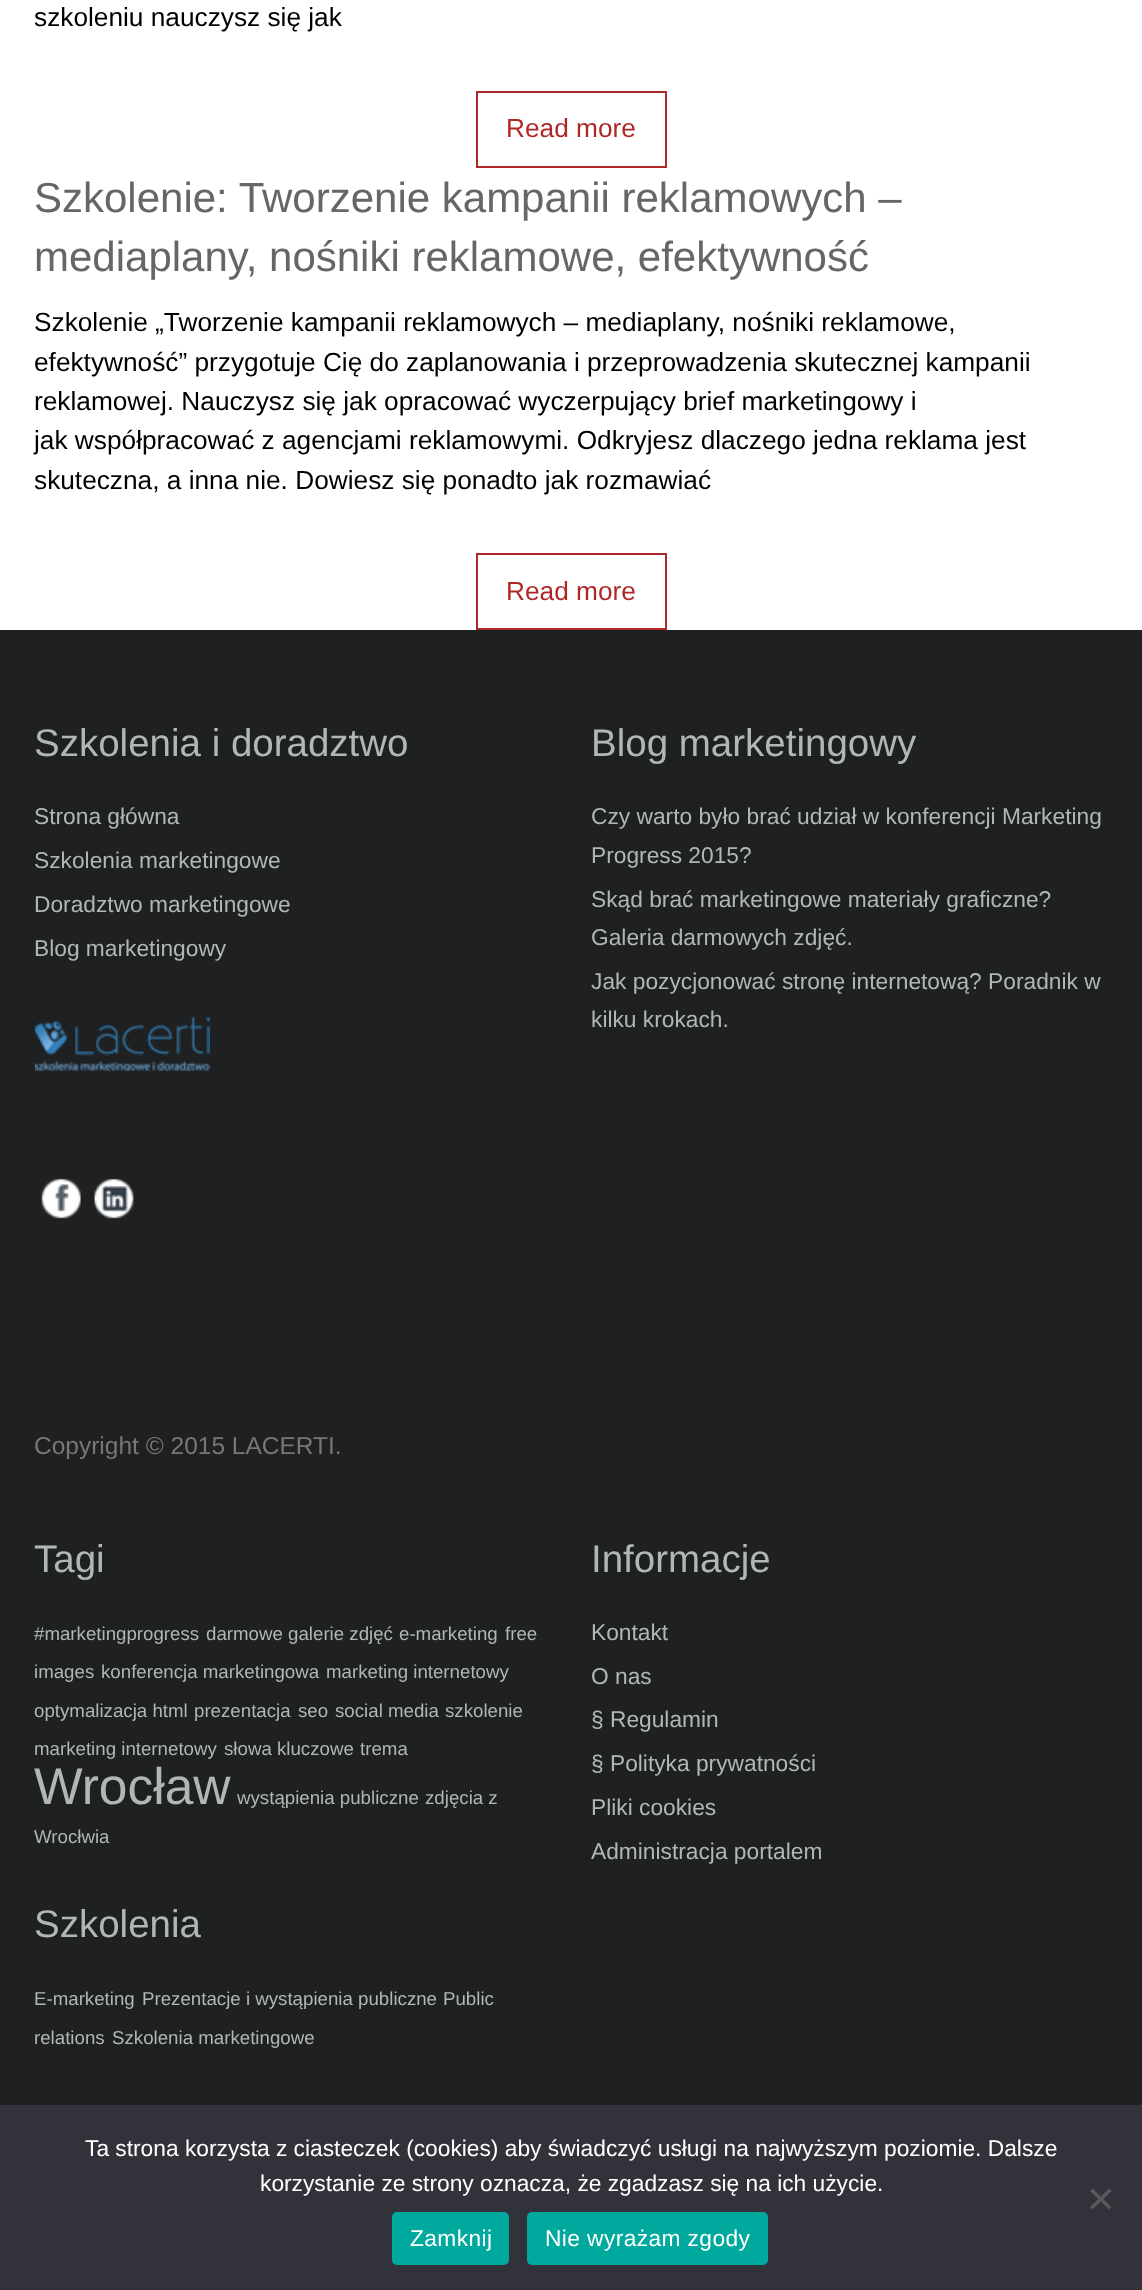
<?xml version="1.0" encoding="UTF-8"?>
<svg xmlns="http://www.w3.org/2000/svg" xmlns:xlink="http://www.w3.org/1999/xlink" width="1142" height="2290">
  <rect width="100%" height="100%" fill="#ffffff" />
  <rect x="477" y="92" width="189" height="75" fill="none" stroke="#af2828" stroke-width="2" />
  <rect x="477" y="554" width="189" height="75" fill="none" stroke="#af2828" stroke-width="2" />
  <rect y="630" width="1142" height="1475" fill="#1f2021" />
  <image x="35" y="1016" width="175" height="55" xlink:href="image1.png" />
  <image x="41" y="1178" width="40" height="41" xlink:href="image2.png" />
  <image x="94" y="1178" width="40" height="41" xlink:href="image3.png" />
  <rect y="2105" width="1142" height="185" fill="#32323a" />
  <path d="M 1109 2188.5 l 2.5 2.5 l -19 18.5 l -2.5 -2.5 z" fill="#59595d" />
  <path d="M 1090 2191 l 2.5 -2.5 l 19 18.5 l -2.5 2.5 z" fill="#59595d" />
  <rect x="392" y="2212" width="117" height="53" rx="5" fill="#00a99d" />
  <rect x="527" y="2212" width="241" height="53" rx="5" fill="#00a99d" />
  <text x="34" y="26" style="font-family: Liberation Sans; font-size: 26.25px; fill: #000000">szkoleniu nauczysz się jak</text>
  <text x="506" y="137" style="font-family: Liberation Sans; font-size: 26.25px; fill: #af2828">Read more</text>
  <text x="34" y="212" style="font-family: Liberation Sans; font-size: 42px; fill: #666666">Szkolenie: Tworzenie kampanii reklamowych –</text>
  <text x="34" y="271" style="font-family: Liberation Sans; font-size: 42px; fill: #666666">mediaplany, nośniki reklamowe, efektywność</text>
  <text x="34" y="331" style="font-family: Liberation Sans; font-size: 26.25px; fill: #000000">Szkolenie „Tworzenie kampanii reklamowych – mediaplany, nośniki reklamowe,</text>
  <text x="34" y="371" style="font-family: Liberation Sans; font-size: 26.25px; fill: #000000">efektywność” przygotuje Cię do zaplanowania i przeprowadzenia skutecznej kampanii</text>
  <text x="34" y="410" style="font-family: Liberation Sans; font-size: 26.25px; fill: #000000">reklamowej. Nauczysz się jak opracować wyczerpujący brief marketingowy i</text>
  <text x="34" y="449" style="font-family: Liberation Sans; font-size: 26.25px; fill: #000000">jak współpracować z agencjami reklamowymi. Odkryjesz dlaczego jedna reklama jest</text>
  <text x="34" y="489" style="font-family: Liberation Sans; font-size: 26.25px; fill: #000000">skuteczna, a inna nie. Dowiesz się ponadto jak rozmawiać</text>
  <text x="506" y="600" style="font-family: Liberation Sans; font-size: 26.25px; fill: #af2828">Read more</text>
  <text x="34" y="756" style="font-family: Liberation Sans; font-size: 38.5px; fill: #b1b6b6">Szkolenia i doradztwo</text>
  <text x="34" y="824" style="font-family: Liberation Sans; font-size: 22.75px; fill: #b1b6b6">Strona główna</text>
  <text x="34" y="868" style="font-family: Liberation Sans; font-size: 22.75px; fill: #b1b6b6">Szkolenia marketingowe</text>
  <text x="34" y="912" style="font-family: Liberation Sans; font-size: 22.75px; fill: #b1b6b6">Doradztwo marketingowe</text>
  <text x="34" y="956" style="font-family: Liberation Sans; font-size: 22.75px; fill: #b1b6b6">Blog marketingowy</text>
  <text x="34" y="1454" style="font-family: Liberation Sans; font-size: 24.5px; fill: #777777">Copyright © 2015 LACERTI.</text>
  <text x="591" y="756" style="font-family: Liberation Sans; font-size: 38.5px; fill: #b1b6b6">Blog marketingowy</text>
  <text x="591" y="824" style="font-family: Liberation Sans; font-size: 22.75px; fill: #b1b6b6">Czy warto było brać udział w konferencji Marketing</text>
  <text x="591" y="863" style="font-family: Liberation Sans; font-size: 22.75px; fill: #b1b6b6">Progress 2015?</text>
  <text x="591" y="907" style="font-family: Liberation Sans; font-size: 22.75px; fill: #b1b6b6">Skąd brać marketingowe materiały graficzne?</text>
  <text x="591" y="945" style="font-family: Liberation Sans; font-size: 22.75px; fill: #b1b6b6">Galeria darmowych zdjęć.</text>
  <text x="591" y="989" style="font-family: Liberation Sans; font-size: 22.75px; fill: #b1b6b6">Jak pozycjonować stronę internetową? Poradnik w</text>
  <text x="591" y="1027" style="font-family: Liberation Sans; font-size: 22.75px; fill: #b1b6b6">kilku krokach.</text>
  <text x="34" y="1572" style="font-family: Liberation Sans; font-size: 38.5px; fill: #b1b6b6">Tagi</text>
  <text x="34" y="1640" style="font-family: Liberation Sans; font-size: 18.7px; fill: #b1b6b6">#marketingprogress</text>
  <text x="206" y="1640" style="font-family: Liberation Sans; font-size: 18.7px; fill: #b1b6b6">darmowe galerie zdjęć</text>
  <text x="399" y="1640" style="font-family: Liberation Sans; font-size: 18.7px; fill: #b1b6b6">e-marketing</text>
  <text x="505" y="1640" style="font-family: Liberation Sans; font-size: 18.7px; fill: #b1b6b6">free</text>
  <text x="34" y="1678" style="font-family: Liberation Sans; font-size: 18.7px; fill: #b1b6b6">images</text>
  <text x="101" y="1678" style="font-family: Liberation Sans; font-size: 18.7px; fill: #b1b6b6">konferencja marketingowa</text>
  <text x="326" y="1678" style="font-family: Liberation Sans; font-size: 18.7px; fill: #b1b6b6">marketing internetowy</text>
  <text x="34" y="1717" style="font-family: Liberation Sans; font-size: 18.7px; fill: #b1b6b6">optymalizacja html</text>
  <text x="194" y="1717" style="font-family: Liberation Sans; font-size: 18.7px; fill: #b1b6b6">prezentacja</text>
  <text x="298" y="1717" style="font-family: Liberation Sans; font-size: 18.7px; fill: #b1b6b6">seo</text>
  <text x="335" y="1717" style="font-family: Liberation Sans; font-size: 18.7px; fill: #b1b6b6">social media</text>
  <text x="445" y="1717" style="font-family: Liberation Sans; font-size: 18.7px; fill: #b1b6b6">szkolenie</text>
  <text x="34" y="1755" style="font-family: Liberation Sans; font-size: 18.7px; fill: #b1b6b6">marketing internetowy</text>
  <text x="224" y="1755" style="font-family: Liberation Sans; font-size: 18.7px; fill: #b1b6b6">słowa kluczowe</text>
  <text x="360" y="1755" style="font-family: Liberation Sans; font-size: 18.7px; fill: #b1b6b6">trema</text>
  <text x="34" y="1804" style="font-family: Liberation Sans; font-size: 51.5px; fill: #b1b6b6">Wrocław</text>
  <text x="237" y="1804" style="font-family: Liberation Sans; font-size: 18.7px; fill: #b1b6b6">wystąpienia publiczne</text>
  <text x="425" y="1804" style="font-family: Liberation Sans; font-size: 18.7px; fill: #b1b6b6">zdjęcia z</text>
  <text x="34" y="1843" style="font-family: Liberation Sans; font-size: 18.7px; fill: #b1b6b6">Wrocłwia</text>
  <text x="34" y="1937" style="font-family: Liberation Sans; font-size: 38.5px; fill: #b1b6b6">Szkolenia</text>
  <text x="34" y="2005" style="font-family: Liberation Sans; font-size: 18.7px; fill: #b1b6b6">E-marketing</text>
  <text x="142" y="2005" style="font-family: Liberation Sans; font-size: 18.7px; fill: #b1b6b6">Prezentacje i wystąpienia publiczne</text>
  <text x="443" y="2005" style="font-family: Liberation Sans; font-size: 18.7px; fill: #b1b6b6">Public</text>
  <text x="34" y="2044" style="font-family: Liberation Sans; font-size: 18.7px; fill: #b1b6b6">relations</text>
  <text x="112" y="2044" style="font-family: Liberation Sans; font-size: 18.7px; fill: #b1b6b6">Szkolenia marketingowe</text>
  <text x="591" y="1572" style="font-family: Liberation Sans; font-size: 38.5px; fill: #b1b6b6">Informacje</text>
  <text x="591" y="1640" style="font-family: Liberation Sans; font-size: 22.75px; fill: #b1b6b6">Kontakt</text>
  <text x="591" y="1684" style="font-family: Liberation Sans; font-size: 22.75px; fill: #b1b6b6">O nas</text>
  <text x="591" y="1727" style="font-family: Liberation Sans; font-size: 22.75px; fill: #b1b6b6">§ Regulamin</text>
  <text x="591" y="1771" style="font-family: Liberation Sans; font-size: 22.75px; fill: #b1b6b6">§ Polityka prywatności</text>
  <text x="591" y="1815" style="font-family: Liberation Sans; font-size: 22.75px; fill: #b1b6b6">Pliki cookies</text>
  <text x="591" y="1859" style="font-family: Liberation Sans; font-size: 22.75px; fill: #b1b6b6">Administracja portalem</text>
  <text x="85" y="2156" style="font-family: Liberation Sans; font-size: 22.75px; fill: #ffffff">Ta strona korzysta z ciasteczek (cookies) aby świadczyć usługi na najwyższym poziomie. Dalsze</text>
  <text x="260" y="2191" style="font-family: Liberation Sans; font-size: 22.75px; fill: #ffffff">korzystanie ze strony oznacza, że zgadzasz się na ich użycie.</text>
  <text x="410" y="2246" style="font-family: Liberation Sans; font-size: 22.75px; letter-spacing: 0.4px; fill: #ffffff">Zamknij</text>
  <text x="545" y="2246" style="font-family: Liberation Sans; font-size: 22.75px; letter-spacing: 0.4px; fill: #ffffff">Nie wyrażam zgody</text>
</svg>
